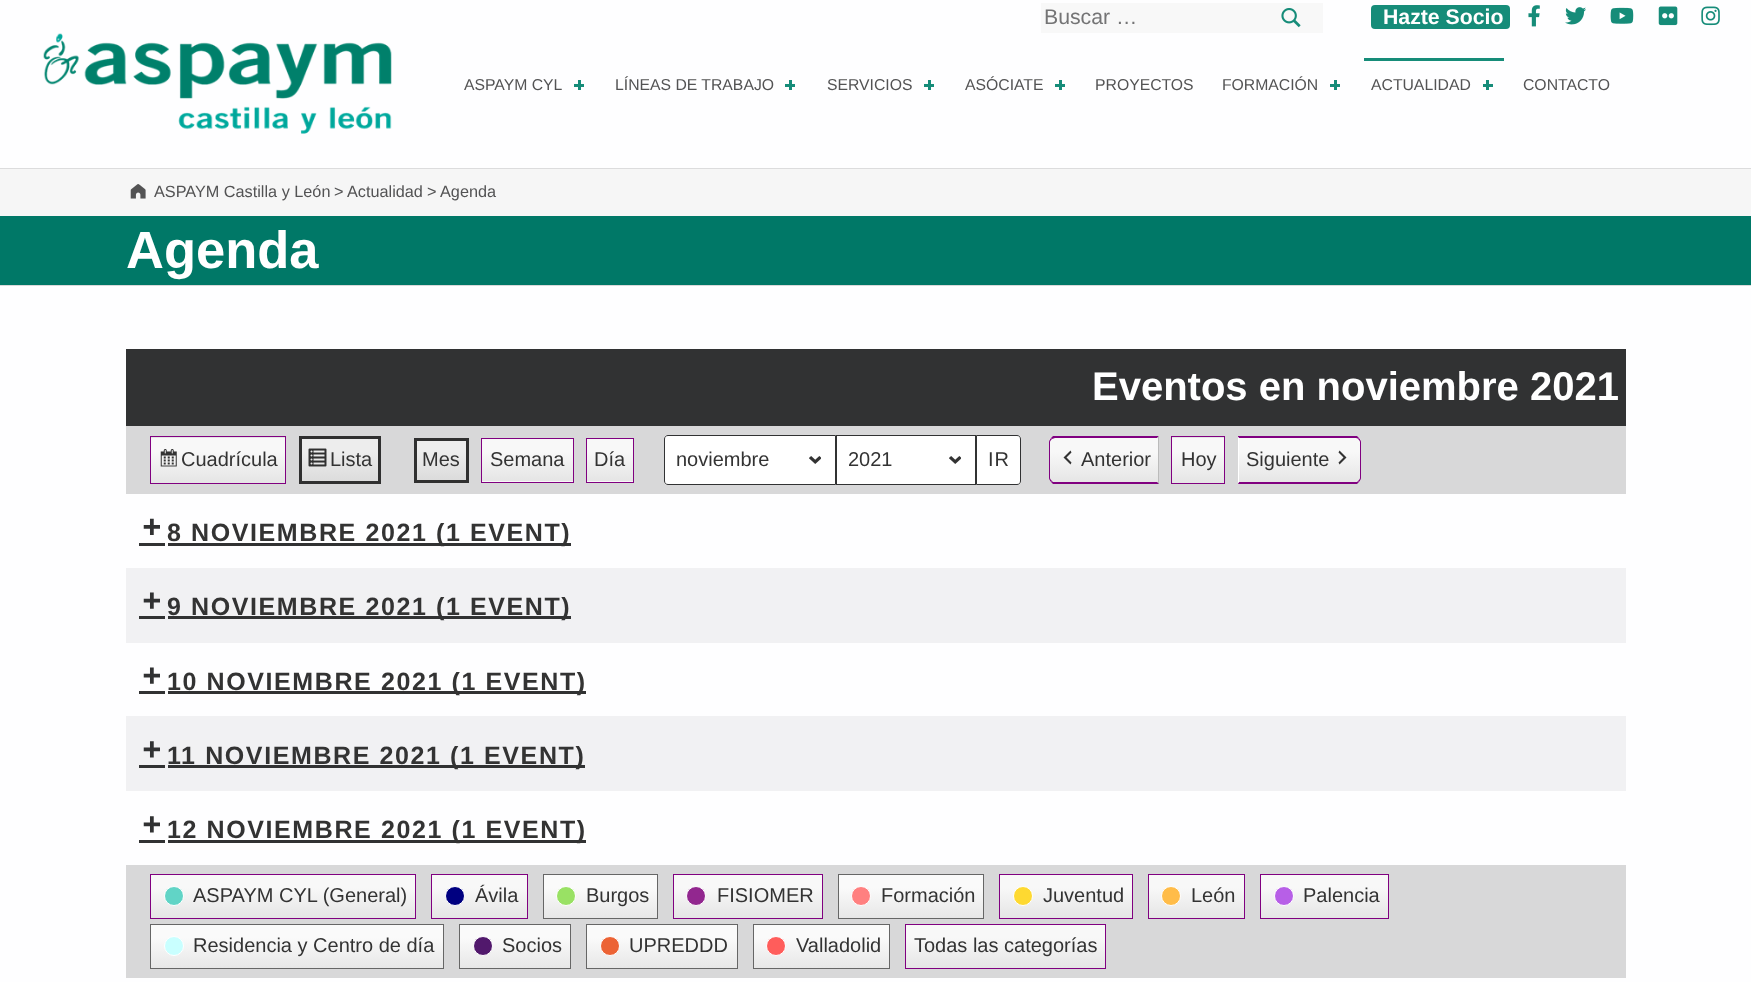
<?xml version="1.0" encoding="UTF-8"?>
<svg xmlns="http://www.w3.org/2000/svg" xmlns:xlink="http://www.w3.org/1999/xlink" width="1751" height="982">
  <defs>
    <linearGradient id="g1" gradientUnits="userSpaceOnUse" x1="218" y1="438" x2="218" y2="393"><stop offset="0" stop-color="#e5e5e5" /><stop offset="0.7" stop-color="#f8f8f8" /></linearGradient>
    <linearGradient id="g2" gradientUnits="userSpaceOnUse" x1="218" y1="483" x2="218" y2="438"><stop offset="0" stop-color="#e5e5e5" /><stop offset="0.7" stop-color="#f8f8f8" /></linearGradient>
    <linearGradient id="g3" gradientUnits="userSpaceOnUse" x1="340" y1="483" x2="340" y2="438"><stop offset="0" stop-color="#dbdbdb" /><stop offset="0.7" stop-color="#ededed" /></linearGradient>
    <linearGradient id="g4" gradientUnits="userSpaceOnUse" x1="441" y1="481" x2="441" y2="439"><stop offset="0" stop-color="#dbdbdb" /><stop offset="0.7" stop-color="#ededed" /></linearGradient>
    <linearGradient id="g5" gradientUnits="userSpaceOnUse" x1="528" y1="481" x2="528" y2="439"><stop offset="0" stop-color="#e5e5e5" /><stop offset="0.7" stop-color="#f8f8f8" /></linearGradient>
    <linearGradient id="g6" gradientUnits="userSpaceOnUse" x1="528" y1="524" x2="528" y2="481"><stop offset="0" stop-color="#e5e5e5" /><stop offset="0.7" stop-color="#f8f8f8" /></linearGradient>
    <linearGradient id="g7" gradientUnits="userSpaceOnUse" x1="610" y1="481" x2="610" y2="439"><stop offset="0" stop-color="#e5e5e5" /><stop offset="0.7" stop-color="#f8f8f8" /></linearGradient>
    <linearGradient id="g8" gradientUnits="userSpaceOnUse" x1="610" y1="524" x2="610" y2="481"><stop offset="0" stop-color="#e5e5e5" /><stop offset="0.7" stop-color="#f8f8f8" /></linearGradient>
    <clipPath id="clip1"><path d="M 1055 436 h 104 v 48 h -104 c -3.5 0 -6 -2.5 -6 -6 v -36 c 0 -3.5 2.5 -6 6 -6 z" /></clipPath>
    <linearGradient id="g9" gradientUnits="userSpaceOnUse" x1="1104" y1="438" x2="1104" y2="393"><stop offset="0" stop-color="#e5e5e5" /><stop offset="0.7" stop-color="#f8f8f8" /></linearGradient>
    <linearGradient id="g10" gradientUnits="userSpaceOnUse" x1="1104" y1="483" x2="1104" y2="438"><stop offset="0" stop-color="#e5e5e5" /><stop offset="0.7" stop-color="#f8f8f8" /></linearGradient>
    <linearGradient id="g11" gradientUnits="userSpaceOnUse" x1="1198" y1="438" x2="1198" y2="393"><stop offset="0" stop-color="#e5e5e5" /><stop offset="0.7" stop-color="#f8f8f8" /></linearGradient>
    <linearGradient id="g12" gradientUnits="userSpaceOnUse" x1="1198" y1="483" x2="1198" y2="438"><stop offset="0" stop-color="#e5e5e5" /><stop offset="0.7" stop-color="#f8f8f8" /></linearGradient>
    <clipPath id="clip2"><path d="M 1238 436 h 117 c 3.5 0 6 2.5 6 6 v 36 c 0 3.5 -2.5 6 -6 6 h -117 z" /></clipPath>
    <linearGradient id="g13" gradientUnits="userSpaceOnUse" x1="1299" y1="438" x2="1299" y2="393"><stop offset="0" stop-color="#e5e5e5" /><stop offset="0.7" stop-color="#f8f8f8" /></linearGradient>
    <linearGradient id="g14" gradientUnits="userSpaceOnUse" x1="1299" y1="483" x2="1299" y2="438"><stop offset="0" stop-color="#e5e5e5" /><stop offset="0.7" stop-color="#f8f8f8" /></linearGradient>
    <linearGradient id="g15" gradientUnits="userSpaceOnUse" x1="283" y1="918" x2="283" y2="875"><stop offset="0" stop-color="#e5e5e5" /><stop offset="0.7" stop-color="#f8f8f8" /></linearGradient>
    <linearGradient id="g16" gradientUnits="userSpaceOnUse" x1="479" y1="918" x2="479" y2="875"><stop offset="0" stop-color="#e5e5e5" /><stop offset="0.7" stop-color="#f8f8f8" /></linearGradient>
    <linearGradient id="g17" gradientUnits="userSpaceOnUse" x1="600" y1="918" x2="600" y2="875"><stop offset="0" stop-color="#e7e7e7" /><stop offset="0.7" stop-color="#fafafa" /></linearGradient>
    <linearGradient id="g18" gradientUnits="userSpaceOnUse" x1="748" y1="918" x2="748" y2="875"><stop offset="0" stop-color="#e5e5e5" /><stop offset="0.7" stop-color="#f8f8f8" /></linearGradient>
    <linearGradient id="g19" gradientUnits="userSpaceOnUse" x1="911" y1="918" x2="911" y2="875"><stop offset="0" stop-color="#e7e7e7" /><stop offset="0.7" stop-color="#fafafa" /></linearGradient>
    <linearGradient id="g20" gradientUnits="userSpaceOnUse" x1="1066" y1="918" x2="1066" y2="875"><stop offset="0" stop-color="#e5e5e5" /><stop offset="0.7" stop-color="#f8f8f8" /></linearGradient>
    <linearGradient id="g21" gradientUnits="userSpaceOnUse" x1="1196" y1="918" x2="1196" y2="875"><stop offset="0" stop-color="#e5e5e5" /><stop offset="0.7" stop-color="#f8f8f8" /></linearGradient>
    <linearGradient id="g22" gradientUnits="userSpaceOnUse" x1="1324" y1="918" x2="1324" y2="875"><stop offset="0" stop-color="#e5e5e5" /><stop offset="0.7" stop-color="#f8f8f8" /></linearGradient>
    <linearGradient id="g23" gradientUnits="userSpaceOnUse" x1="297" y1="968" x2="297" y2="925"><stop offset="0" stop-color="#e7e7e7" /><stop offset="0.7" stop-color="#fafafa" /></linearGradient>
    <linearGradient id="g24" gradientUnits="userSpaceOnUse" x1="515" y1="968" x2="515" y2="925"><stop offset="0" stop-color="#e7e7e7" /><stop offset="0.7" stop-color="#fafafa" /></linearGradient>
    <linearGradient id="g25" gradientUnits="userSpaceOnUse" x1="662" y1="968" x2="662" y2="925"><stop offset="0" stop-color="#e7e7e7" /><stop offset="0.7" stop-color="#fafafa" /></linearGradient>
    <linearGradient id="g26" gradientUnits="userSpaceOnUse" x1="821" y1="968" x2="821" y2="925"><stop offset="0" stop-color="#e7e7e7" /><stop offset="0.7" stop-color="#fafafa" /></linearGradient>
    <linearGradient id="g27" gradientUnits="userSpaceOnUse" x1="1006" y1="968" x2="1006" y2="925"><stop offset="0" stop-color="#e5e5e5" /><stop offset="0.7" stop-color="#f8f8f8" /></linearGradient>
  </defs>
  <rect width="100%" height="100%" fill="#fefeff" />
  <rect x="1041" y="3" width="282" height="30" fill="#f8f8f8" />
  <image x="1281" y="8" width="20" height="20" xlink:href="image1.png" />
  <rect x="1371" y="5" width="139" height="24" rx="4" fill="#168c79" />
  <image x="1528" y="5" width="12" height="22" xlink:href="image2.png" />
  <image x="1565" y="7" width="21" height="18" xlink:href="image3.png" />
  <image x="1610" y="7" width="24" height="17" xlink:href="image4.png" />
  <image x="1658" y="6" width="20" height="20" xlink:href="image5.png" />
  <image x="1701" y="6" width="19" height="20" xlink:href="image6.png" />
  <rect y="168" width="1751" height="1" fill="#dcdcdd" />
  <image x="43" y="33" width="349" height="101" xlink:href="image7.png" />
  <rect x="574" y="84" width="10" height="3" fill="#168c79" />
  <rect x="578" y="80" width="3" height="10" fill="#168c79" />
  <rect x="785" y="84" width="10" height="3" fill="#168c79" />
  <rect x="789" y="80" width="3" height="10" fill="#168c79" />
  <rect x="924" y="84" width="10" height="3" fill="#168c79" />
  <rect x="928" y="80" width="3" height="10" fill="#168c79" />
  <rect x="1055" y="84" width="10" height="3" fill="#168c79" />
  <rect x="1059" y="80" width="3" height="10" fill="#168c79" />
  <rect x="1330" y="84" width="10" height="3" fill="#168c79" />
  <rect x="1334" y="80" width="3" height="10" fill="#168c79" />
  <rect x="1364" y="58" width="140" height="3" fill="#168c79" />
  <rect x="1483" y="84" width="10" height="3" fill="#168c79" />
  <rect x="1486" y="80" width="3" height="10" fill="#168c79" />
  <rect y="169" width="1751" height="47" fill="#f6f6f6" />
  <image x="130" y="184" width="16" height="15" xlink:href="image8.png" />
  <rect y="285" width="1751" height="1" fill="#d9d9da" />
  <rect y="216" width="1751" height="69" fill="#007867" />
  <rect x="126" y="349" width="1500" height="77" fill="#313233" />
  <rect x="126" y="426" width="1500" height="68" fill="#d8d8d9" />
  <rect x="150" y="437" width="136" height="1" fill="url(#g1)" />
  <rect x="151" y="438" width="134" height="45" fill="url(#g2)" />
  <rect x="150.5" y="436.5" width="135" height="47" fill="none" stroke="#800080" />
  <image x="160" y="449" width="17" height="18" xlink:href="image9.png" />
  <rect x="302" y="439" width="76" height="42" fill="url(#g3)" />
  <image x="308" y="448" width="19" height="19" xlink:href="image10.png" />
  <rect x="300.5" y="437.5" width="79" height="45" fill="none" stroke="#303030" stroke-width="3" />
  <rect x="417" y="441" width="49" height="39" fill="url(#g4)" />
  <rect x="415.5" y="439.5" width="52" height="42" fill="none" stroke="#303030" stroke-width="3" />
  <rect x="482" y="439" width="91" height="42" fill="url(#g5)" />
  <rect x="481" y="481" width="93" height="1" fill="url(#g6)" />
  <rect x="481.5" y="438.5" width="92" height="44" fill="none" stroke="#800080" />
  <rect x="587" y="439" width="46" height="42" fill="url(#g7)" />
  <rect x="586" y="481" width="48" height="1" fill="url(#g8)" />
  <rect x="586.5" y="438.5" width="47" height="44" fill="none" stroke="#800080" />
  <path d="M 668 435 h 168 v 50 h -168 c -2 0 -4 -2 -4 -4 v -42 c 0 -2 2 -4 4 -4 z" fill="#ffffff" />
  <image x="809" y="456" width="12" height="8" xlink:href="image11.png" />
  <path d="M 668 435.5 h 167.5 v 49 h -167.5 c -2 0 -3.5 -1.5 -3.5 -3.5 v -42 c 0 -2 1.5 -3.5 3.5 -3.5 z" fill="none" stroke="#313233" />
  <rect x="837" y="436" width="138" height="48" fill="#ffffff" />
  <image x="949" y="456" width="12" height="8" xlink:href="image11.png" />
  <rect x="836.5" y="435.5" width="139" height="49" fill="none" stroke="#313233" />
  <path d="M 976.5 435.5 h 40.5 c 2 0 3.5 1.5 3.5 3.5 v 42 c 0 2 -1.5 3.5 -3.5 3.5 h -40.5 z" fill="#ffffff" stroke="#313233" />
  <g clip-path="url(#clip1)">
    <rect x="1049" y="436" width="110" height="2" fill="url(#g9)" />
    <rect x="1049" y="438" width="109" height="45" fill="url(#g10)" />
  </g>
  <path d="M 1055 438 l -3 1 l -1 -1 l 2 -2 h 106 l -2 2 z" fill="#800080" />
  <path d="M 1159 436 l -2 2 h 1 v 44 h -1 l 2 2 z" fill="#bbbbbb" />
  <path d="M 1159 484 h -106 l -2 -2 l 1 -1 c 0 1 2 1 3 1 h 102 z" fill="#800080" />
  <path d="M 1051 482 c -1 -1 -2 -3 -2 -4 v -36 c 0 -1 1 -3 2 -4 l 1 1 c -1 1 -2 2 -2 3 v 36 c 0 1 1 2 2 3 z" fill="#800080" />
  <image x="1063" y="450" width="9" height="15" xlink:href="image12.png" />
  <rect x="1171" y="437" width="54" height="1" fill="url(#g11)" />
  <rect x="1172" y="438" width="52" height="45" fill="url(#g12)" />
  <rect x="1171.5" y="436.5" width="53" height="47" fill="none" stroke="#800080" />
  <g clip-path="url(#clip2)">
    <rect x="1238" y="436" width="123" height="2" fill="url(#g13)" />
    <rect x="1238" y="438" width="123" height="45" fill="url(#g14)" />
  </g>
  <path d="M 1238 437 v -1 h 119 l 2 2 l -1 1 c 0 -1 -2 -1 -3 -1 h -116 z" fill="#800080" />
  <path d="M 1359 438 c 1 1 2 3 2 4 v 36 c 0 1 -1 3 -2 4 l -1 -1 c 1 -1 2 -2 2 -3 v -36 c 0 -1 -1 -2 -2 -3 z" fill="#800080" />
  <path d="M 1238 484 l 1 -2 h 116 c 1 0 3 0 3 -1 l 1 1 l -2 2 z" fill="#800080" />
  <path d="M 1239 438 v 44 l -1 1 v -46 z" fill="#ffffff" />
  <image x="1338" y="450" width="9" height="15" xlink:href="image13.png" />
  <image x="143" y="518" width="17" height="17" xlink:href="image14.png" />
  <rect x="168" y="543" width="403" height="3" fill="#313233" />
  <rect x="139" y="543" width="26" height="3" fill="#313233" />
  <rect x="126" y="568" width="1500" height="75" fill="#f1f1f3" />
  <image x="143" y="592" width="17" height="17" xlink:href="image15.png" />
  <rect x="168" y="616" width="403" height="3" fill="#313233" />
  <rect x="139" y="616" width="26" height="3" fill="#313233" />
  <image x="143" y="667" width="17" height="17" xlink:href="image16.png" />
  <rect x="168" y="691" width="418" height="3" fill="#313233" />
  <rect x="139" y="691" width="26" height="3" fill="#313233" />
  <rect x="126" y="716" width="1500" height="75" fill="#f1f1f3" />
  <image x="143" y="741" width="17" height="17" xlink:href="image17.png" />
  <rect x="168" y="765" width="417" height="3" fill="#313233" />
  <rect x="139" y="765" width="26" height="3" fill="#313233" />
  <image x="143" y="816" width="17" height="17" xlink:href="image18.png" />
  <rect x="168" y="840" width="418" height="3" fill="#313233" />
  <rect x="139" y="840" width="26" height="3" fill="#313233" />
  <rect x="126" y="865" width="1500" height="113" fill="#d8d8d9" />
  <rect x="151" y="875" width="264" height="43" fill="url(#g15)" />
  <rect x="150.5" y="874.5" width="265" height="44" fill="none" stroke="#800080" />
  <circle cx="174" cy="896" r="9.5" fill="#61d4c6" stroke="#ffffff" />
  <rect x="432" y="875" width="95" height="43" fill="url(#g16)" />
  <rect x="431.5" y="874.5" width="96" height="44" fill="none" stroke="#800080" />
  <circle cx="455" cy="896" r="9.5" fill="#000080" stroke="#ffffff" />
  <rect x="544" y="875" width="113" height="43" fill="url(#g17)" />
  <rect x="543.5" y="874.5" width="114" height="44" fill="none" stroke="#666666" />
  <circle cx="566" cy="896" r="9.5" fill="#99e164" stroke="#ffffff" />
  <rect x="674" y="875" width="148" height="43" fill="url(#g18)" />
  <rect x="673.5" y="874.5" width="149" height="44" fill="none" stroke="#800080" />
  <circle cx="696" cy="896" r="9.5" fill="#92278f" stroke="#ffffff" />
  <rect x="839" y="875" width="144" height="43" fill="url(#g19)" />
  <rect x="838.5" y="874.5" width="145" height="44" fill="none" stroke="#666666" />
  <circle cx="861" cy="896" r="9.5" fill="#ff8080" stroke="#ffffff" />
  <rect x="1000" y="875" width="132" height="43" fill="url(#g20)" />
  <rect x="999.5" y="874.5" width="133" height="44" fill="none" stroke="#800080" />
  <circle cx="1023" cy="896" r="9.5" fill="#fed931" stroke="#ffffff" />
  <rect x="1149" y="875" width="95" height="43" fill="url(#g21)" />
  <rect x="1148.5" y="874.5" width="96" height="44" fill="none" stroke="#800080" />
  <circle cx="1171" cy="896" r="9.5" fill="#ffbc49" stroke="#ffffff" />
  <rect x="1261" y="875" width="127" height="43" fill="url(#g22)" />
  <rect x="1260.5" y="874.5" width="128" height="44" fill="none" stroke="#800080" />
  <circle cx="1284" cy="896" r="9.5" fill="#b75fe7" stroke="#ffffff" />
  <rect x="151" y="925" width="292" height="43" fill="url(#g23)" />
  <rect x="150.5" y="924.5" width="293" height="44" fill="none" stroke="#666666" />
  <circle cx="174" cy="946" r="9.5" fill="#c9ffff" stroke="#ffffff" />
  <rect x="460" y="925" width="110" height="43" fill="url(#g24)" />
  <rect x="459.5" y="924.5" width="111" height="44" fill="none" stroke="#666666" />
  <circle cx="483" cy="946" r="9.5" fill="#51186c" stroke="#ffffff" />
  <rect x="587" y="925" width="150" height="43" fill="url(#g25)" />
  <rect x="586.5" y="924.5" width="151" height="44" fill="none" stroke="#666666" />
  <circle cx="610" cy="946" r="9.5" fill="#ec6335" stroke="#ffffff" />
  <rect x="754" y="925" width="135" height="43" fill="url(#g26)" />
  <rect x="753.5" y="924.5" width="136" height="44" fill="none" stroke="#666666" />
  <circle cx="776" cy="946" r="9.5" fill="#ff5d5b" stroke="#ffffff" />
  <rect x="906" y="925" width="199" height="43" fill="url(#g27)" />
  <rect x="905.5" y="924.5" width="200" height="44" fill="none" stroke="#800080" />
  <text x="1044" y="24" style="font-family: Liberation Sans; font-size: 21.25px; fill: #747475">Buscar …</text>
  <text x="1383" y="24" style="font-family: Liberation Sans; font-size: 21.25px; font-weight: bold; fill: #ffffff">Hazte Socio</text>
  <text x="464" y="90" style="font-family: Liberation Sans; font-size: 15.75px; fill: #535354">ASPAYM CYL</text>
  <text x="615" y="90" style="font-family: Liberation Sans; font-size: 15.75px; fill: #535354">LÍNEAS DE TRABAJO</text>
  <text x="827" y="90" style="font-family: Liberation Sans; font-size: 15.75px; fill: #535354">SERVICIOS</text>
  <text x="965" y="90" style="font-family: Liberation Sans; font-size: 15.75px; fill: #535354">ASÓCIATE</text>
  <text x="1095" y="90" style="font-family: Liberation Sans; font-size: 15.75px; fill: #535354">PROYECTOS</text>
  <text x="1222" y="90" style="font-family: Liberation Sans; font-size: 15.75px; fill: #535354">FORMACIÓN</text>
  <text x="1371" y="90" style="font-family: Liberation Sans; font-size: 15.75px; fill: #535354">ACTUALIDAD</text>
  <text x="1523" y="90" style="font-family: Liberation Sans; font-size: 15.75px; fill: #535354">CONTACTO</text>
  <text x="154" y="197" style="font-family: Liberation Sans; font-size: 16.25px; fill: #535354">ASPAYM Castilla y León</text>
  <text x="334" y="197" style="font-family: Liberation Sans; font-size: 16.25px; fill: #535354">&gt;</text>
  <text x="347" y="197" style="font-family: Liberation Sans; font-size: 16.25px; fill: #535354">Actualidad</text>
  <text x="427" y="197" style="font-family: Liberation Sans; font-size: 16.25px; fill: #535354">&gt;</text>
  <text x="440" y="197" style="font-family: Liberation Sans; font-size: 16.25px; fill: #535354">Agenda</text>
  <text x="126" y="268" style="font-family: Liberation Sans; font-size: 52.5px; font-weight: bold; fill: #ffffff">Agenda</text>
  <text x="1092" y="400" style="font-family: Liberation Sans; font-size: 40px; font-weight: bold; fill: #ffffff">Eventos en noviembre 2021</text>
  <text x="181" y="466" style="font-family: Liberation Sans; font-size: 20px; fill: #333333">Cuadrícula</text>
  <text x="330" y="466" style="font-family: Liberation Sans; font-size: 20px; fill: #333333">Lista</text>
  <text x="422" y="466" style="font-family: Liberation Sans; font-size: 20px; fill: #333333">Mes</text>
  <text x="490" y="466" style="font-family: Liberation Sans; font-size: 20px; fill: #333333">Semana</text>
  <text x="594" y="466" style="font-family: Liberation Sans; font-size: 20px; fill: #333333">Día</text>
  <text x="676" y="466" style="font-family: Liberation Sans; font-size: 20px; fill: #333333">noviembre</text>
  <text x="848" y="466" style="font-family: Liberation Sans; font-size: 20px; fill: #333333">2021</text>
  <text x="988" y="466" style="font-family: Liberation Sans; font-size: 20px; letter-spacing: 1px; fill: #333333">IR</text>
  <text x="1081" y="466" style="font-family: Liberation Sans; font-size: 20px; fill: #333333">Anterior</text>
  <text x="1181" y="466" style="font-family: Liberation Sans; font-size: 20px; fill: #333333">Hoy</text>
  <text x="1246" y="466" style="font-family: Liberation Sans; font-size: 20px; fill: #333333">Siguiente</text>
  <text x="167" y="541" style="font-family: Liberation Sans; font-size: 25px; font-weight: bold; letter-spacing: 1.6px; fill: #333333">8 NOVIEMBRE 2021 (1 EVENT)</text>
  <text x="167" y="615" style="font-family: Liberation Sans; font-size: 25px; font-weight: bold; letter-spacing: 1.6px; fill: #333333">9 NOVIEMBRE 2021 (1 EVENT)</text>
  <text x="167" y="690" style="font-family: Liberation Sans; font-size: 25px; font-weight: bold; letter-spacing: 1.6px; fill: #333333">10 NOVIEMBRE 2021 (1 EVENT)</text>
  <text x="167" y="764" style="font-family: Liberation Sans; font-size: 25px; font-weight: bold; letter-spacing: 1.6px; fill: #333333">11 NOVIEMBRE 2021 (1 EVENT)</text>
  <text x="167" y="838" style="font-family: Liberation Sans; font-size: 25px; font-weight: bold; letter-spacing: 1.6px; fill: #333333">12 NOVIEMBRE 2021 (1 EVENT)</text>
  <text x="193" y="902" style="font-family: Liberation Sans; font-size: 20px; fill: #333333">ASPAYM CYL (General)</text>
  <text x="475" y="902" style="font-family: Liberation Sans; font-size: 20px; fill: #333333">Ávila</text>
  <text x="586" y="902" style="font-family: Liberation Sans; font-size: 20px; fill: #333333">Burgos</text>
  <text x="717" y="902" style="font-family: Liberation Sans; font-size: 20px; fill: #333333">FISIOMER</text>
  <text x="881" y="902" style="font-family: Liberation Sans; font-size: 20px; fill: #333333">Formación</text>
  <text x="1043" y="902" style="font-family: Liberation Sans; font-size: 20px; fill: #333333">Juventud</text>
  <text x="1191" y="902" style="font-family: Liberation Sans; font-size: 20px; fill: #333333">León</text>
  <text x="1303" y="902" style="font-family: Liberation Sans; font-size: 20px; fill: #333333">Palencia</text>
  <text x="193" y="952" style="font-family: Liberation Sans; font-size: 20px; fill: #333333">Residencia y Centro de día</text>
  <text x="502" y="952" style="font-family: Liberation Sans; font-size: 20px; fill: #333333">Socios</text>
  <text x="629" y="952" style="font-family: Liberation Sans; font-size: 20px; fill: #333333">UPREDDD</text>
  <text x="796" y="952" style="font-family: Liberation Sans; font-size: 20px; fill: #333333">Valladolid</text>
  <text x="914" y="952" style="font-family: Liberation Sans; font-size: 20px; fill: #333333">Todas las categorías</text>
</svg>
